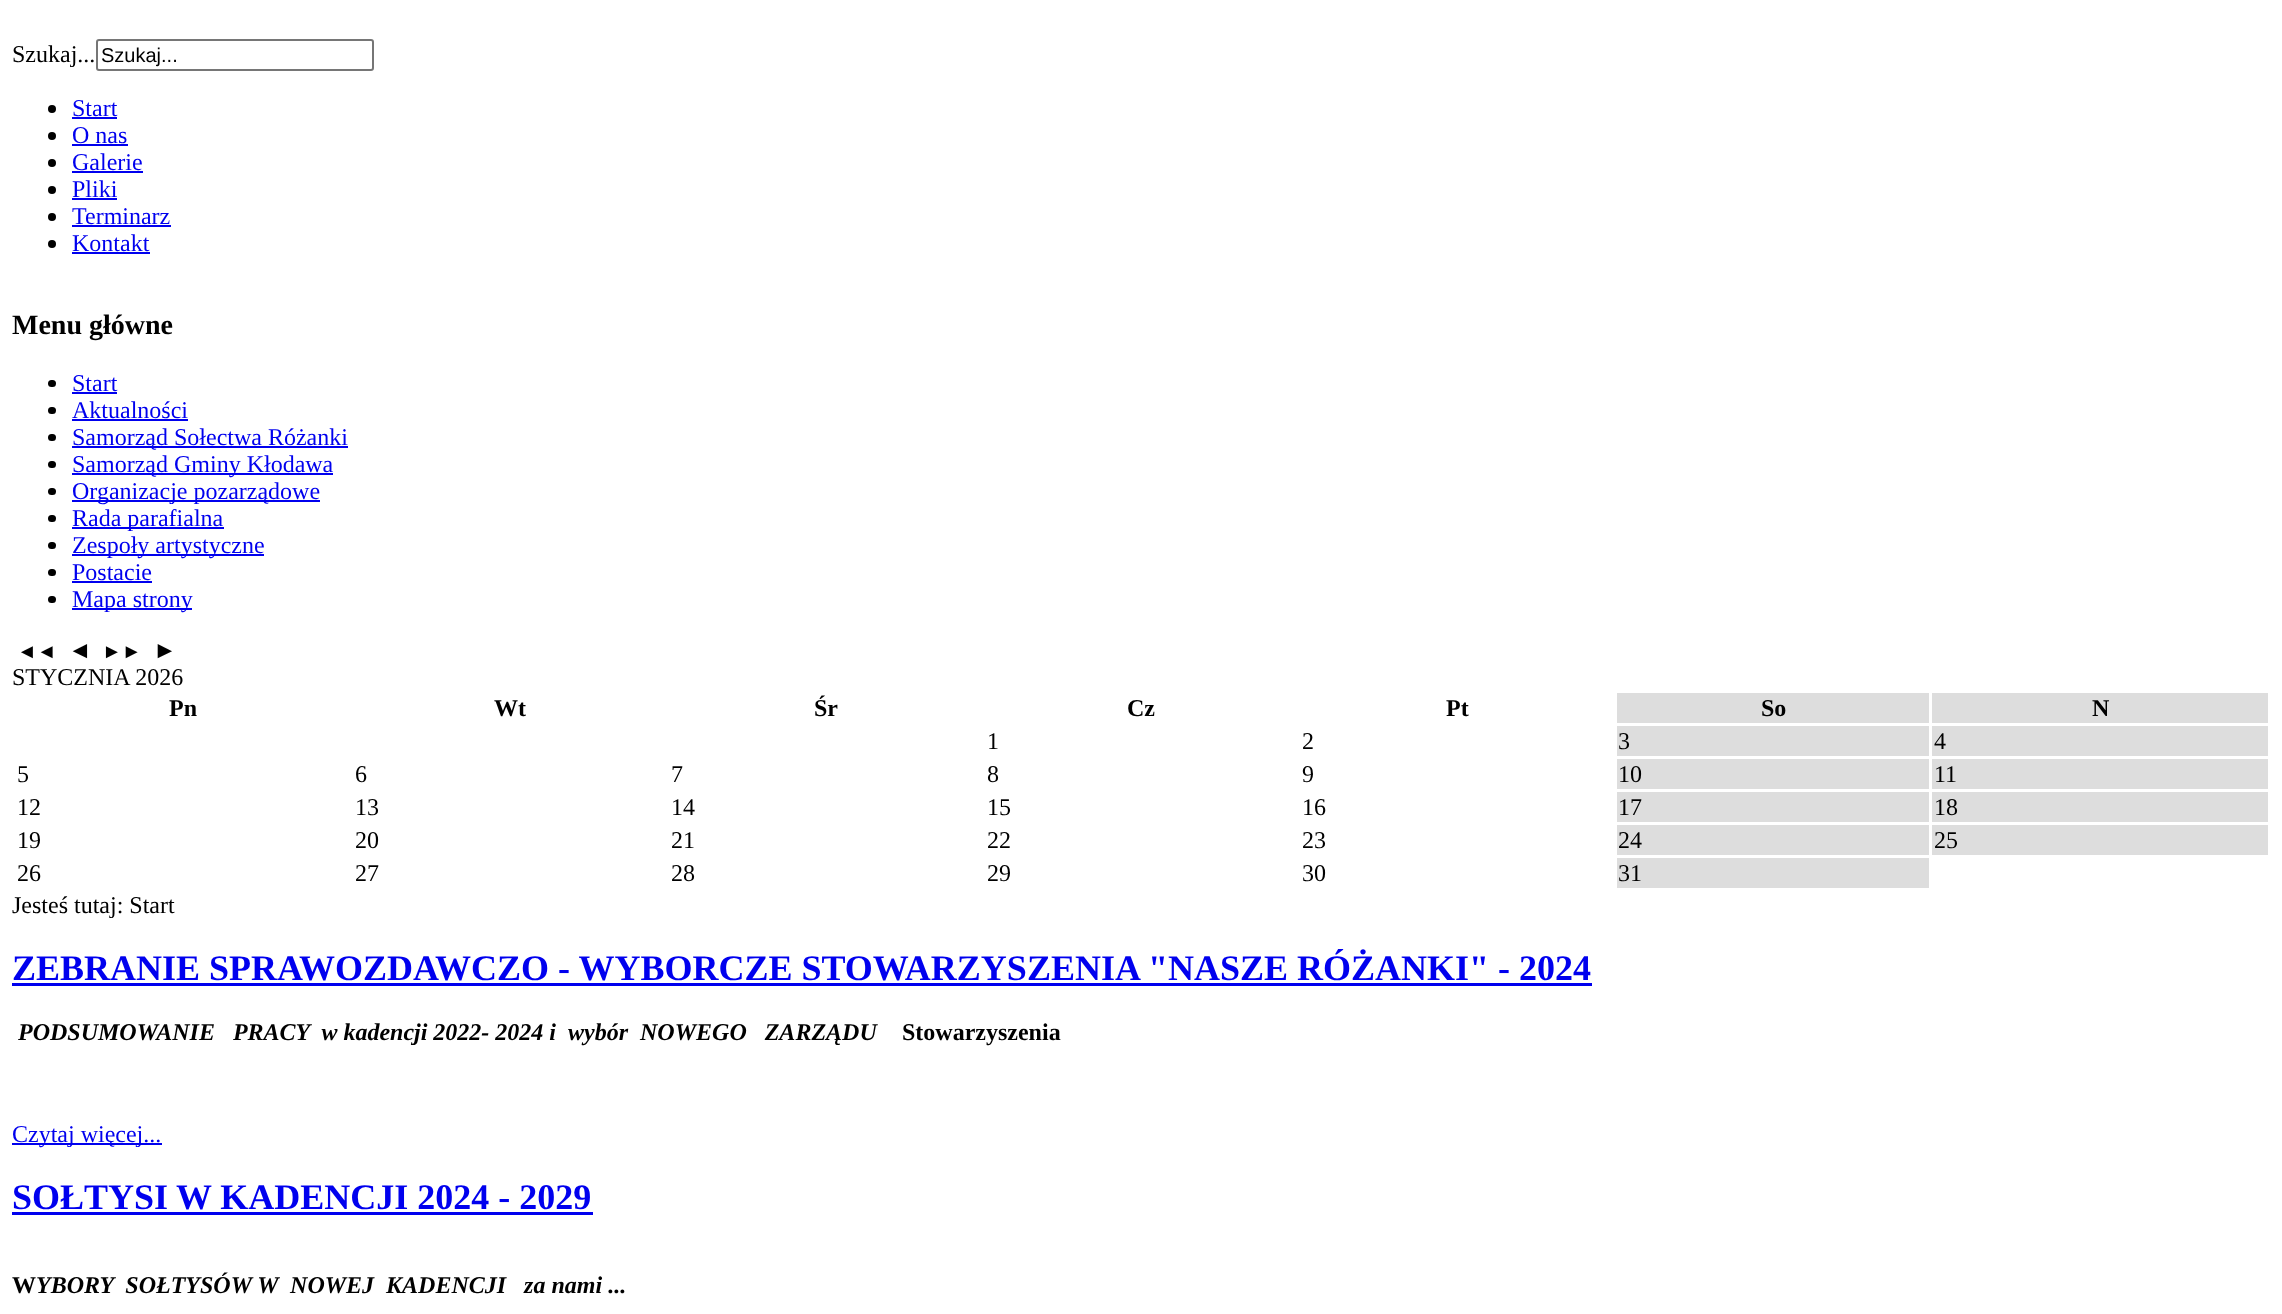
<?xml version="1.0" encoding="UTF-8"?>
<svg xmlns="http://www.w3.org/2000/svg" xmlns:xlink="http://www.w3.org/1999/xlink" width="2282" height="1314">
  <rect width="100%" height="100%" fill="#ffffff" />
  <rect x="97" y="40" width="276" height="30" rx="2" fill="none" stroke="#767676" stroke-width="2" />
  <circle cx="52" cy="109" r="4" fill="#000000" />
  <rect x="72" y="117" width="45" height="2" fill="#0000ee" />
  <circle cx="52" cy="136" r="4" fill="#000000" />
  <rect x="72" y="144" width="56" height="2" fill="#0000ee" />
  <circle cx="52" cy="163" r="4" fill="#000000" />
  <rect x="72" y="171" width="71" height="2" fill="#0000ee" />
  <circle cx="52" cy="190" r="4" fill="#000000" />
  <rect x="72" y="198" width="45" height="2" fill="#0000ee" />
  <circle cx="52" cy="217" r="4" fill="#000000" />
  <rect x="72" y="225" width="99" height="2" fill="#0000ee" />
  <circle cx="52" cy="244" r="4" fill="#000000" />
  <rect x="72" y="252" width="78" height="2" fill="#0000ee" />
  <rect x="48" y="380" width="8" height="7" rx="3.5" fill="#000000" />
  <rect x="72" y="392" width="45" height="2" fill="#0000ee" />
  <rect x="48" y="407" width="8" height="7" rx="3.5" fill="#000000" />
  <rect x="72" y="419" width="116" height="2" fill="#0000ee" />
  <rect x="48" y="434" width="8" height="7" rx="3.5" fill="#000000" />
  <rect x="72" y="446" width="276" height="2" fill="#0000ee" />
  <rect x="48" y="461" width="8" height="7" rx="3.5" fill="#000000" />
  <rect x="72" y="473" width="261" height="2" fill="#0000ee" />
  <rect x="48" y="488" width="8" height="7" rx="3.5" fill="#000000" />
  <rect x="72" y="500" width="248" height="2" fill="#0000ee" />
  <rect x="48" y="515" width="8" height="7" rx="3.5" fill="#000000" />
  <rect x="72" y="527" width="152" height="2" fill="#0000ee" />
  <rect x="48" y="542" width="8" height="7" rx="3.5" fill="#000000" />
  <rect x="72" y="554" width="192" height="2" fill="#0000ee" />
  <rect x="48" y="569" width="8" height="7" rx="3.5" fill="#000000" />
  <rect x="72" y="581" width="80" height="2" fill="#0000ee" />
  <rect x="48" y="596" width="8" height="7" rx="3.5" fill="#000000" />
  <rect x="72" y="608" width="120" height="2" fill="#0000ee" />
  <rect x="1617" y="693" width="312" height="30" fill="#dddddd" />
  <rect x="1932" y="693" width="336" height="30" fill="#dddddd" />
  <rect x="1617" y="726" width="312" height="30" fill="#dddddd" />
  <rect x="1932" y="726" width="336" height="30" fill="#dddddd" />
  <rect x="1617" y="759" width="312" height="30" fill="#dddddd" />
  <rect x="1932" y="759" width="336" height="30" fill="#dddddd" />
  <rect x="1617" y="792" width="312" height="30" fill="#dddddd" />
  <rect x="1932" y="792" width="336" height="30" fill="#dddddd" />
  <rect x="1617" y="825" width="312" height="30" fill="#dddddd" />
  <rect x="1932" y="825" width="336" height="30" fill="#dddddd" />
  <rect x="1617" y="858" width="312" height="30" fill="#dddddd" />
  <rect x="12" y="983" width="1580" height="3" fill="#0000ee" />
  <rect x="12" y="1143" width="150" height="2" fill="#0000ee" />
  <rect x="12" y="1212" width="581" height="3" fill="#0000ee" />
  <text x="12" y="62" style="font-family: Liberation Serif; font-size: 24px; fill: #000000">Szukaj...</text>
  <text x="101" y="62" style="font-family: Liberation Sans; font-size: 20px; fill: #000000">Szukaj...</text>
  <text x="72" y="116" style="font-family: Liberation Serif; font-size: 24px; fill: #0000ee">Start</text>
  <text x="72" y="143" style="font-family: Liberation Serif; font-size: 24px; fill: #0000ee">O nas</text>
  <text x="72" y="170" style="font-family: Liberation Serif; font-size: 24px; fill: #0000ee">Galerie</text>
  <text x="72" y="197" style="font-family: Liberation Serif; font-size: 24px; fill: #0000ee">Pliki</text>
  <text x="72" y="224" style="font-family: Liberation Serif; font-size: 24px; fill: #0000ee">Terminarz</text>
  <text x="72" y="251" style="font-family: Liberation Serif; font-size: 24px; fill: #0000ee">Kontakt</text>
  <text x="12" y="334" style="font-family: Liberation Serif; font-size: 28px; font-weight: bold; fill: #000000">Menu główne</text>
  <text x="72" y="391" style="font-family: Liberation Serif; font-size: 24px; fill: #0000ee">Start</text>
  <text x="72" y="418" style="font-family: Liberation Serif; font-size: 24px; fill: #0000ee">Aktualności</text>
  <text x="72" y="445" style="font-family: Liberation Serif; font-size: 24px; fill: #0000ee">Samorząd Sołectwa Różanki</text>
  <text x="72" y="472" style="font-family: Liberation Serif; font-size: 24px; fill: #0000ee">Samorząd Gminy Kłodawa</text>
  <text x="72" y="499" style="font-family: Liberation Serif; font-size: 24px; fill: #0000ee">Organizacje pozarządowe</text>
  <text x="72" y="526" style="font-family: Liberation Serif; font-size: 24px; fill: #0000ee">Rada parafialna</text>
  <text x="72" y="553" style="font-family: Liberation Serif; font-size: 24px; fill: #0000ee">Zespoły artystyczne</text>
  <text x="72" y="580" style="font-family: Liberation Serif; font-size: 24px; fill: #0000ee">Postacie</text>
  <text x="72" y="607" style="font-family: Liberation Serif; font-size: 24px; fill: #0000ee">Mapa strony</text>
  <text x="17" y="658" style="font-family: Liberation Serif; font-size: 20px; fill: #000000">◄◄</text>
  <text x="68" y="658" style="font-family: Liberation Serif; font-size: 24px; fill: #000000">◄</text>
  <text x="102" y="658" style="font-family: Liberation Serif; font-size: 20px; fill: #000000">►►</text>
  <text x="153" y="658" style="font-family: Liberation Serif; font-size: 24px; fill: #000000">►</text>
  <text x="12" y="685" style="font-family: Liberation Serif; font-size: 24px; fill: #000000">STYCZNIA 2026</text>
  <text x="169" y="716" style="font-family: Liberation Serif; font-size: 24px; font-weight: bold; fill: #000000">Pn</text>
  <text x="494" y="716" style="font-family: Liberation Serif; font-size: 24px; font-weight: bold; fill: #000000">Wt</text>
  <text x="814" y="716" style="font-family: Liberation Serif; font-size: 24px; font-weight: bold; fill: #000000">Śr</text>
  <text x="1127" y="716" style="font-family: Liberation Serif; font-size: 24px; font-weight: bold; fill: #000000">Cz</text>
  <text x="1446" y="716" style="font-family: Liberation Serif; font-size: 24px; font-weight: bold; fill: #000000">Pt</text>
  <text x="1761" y="716" style="font-family: Liberation Serif; font-size: 24px; font-weight: bold; fill: #000000">So</text>
  <text x="2092" y="716" style="font-family: Liberation Serif; font-size: 24px; font-weight: bold; fill: #000000">N</text>
  <text x="987" y="749" style="font-family: Liberation Serif; font-size: 24px; fill: #000000">1</text>
  <text x="1302" y="749" style="font-family: Liberation Serif; font-size: 24px; fill: #000000">2</text>
  <text x="1618" y="749" style="font-family: Liberation Serif; font-size: 24px; fill: #000000">3</text>
  <text x="1934" y="749" style="font-family: Liberation Serif; font-size: 24px; fill: #000000">4</text>
  <text x="17" y="782" style="font-family: Liberation Serif; font-size: 24px; fill: #000000">5</text>
  <text x="355" y="782" style="font-family: Liberation Serif; font-size: 24px; fill: #000000">6</text>
  <text x="671" y="782" style="font-family: Liberation Serif; font-size: 24px; fill: #000000">7</text>
  <text x="987" y="782" style="font-family: Liberation Serif; font-size: 24px; fill: #000000">8</text>
  <text x="1302" y="782" style="font-family: Liberation Serif; font-size: 24px; fill: #000000">9</text>
  <text x="1618" y="782" style="font-family: Liberation Serif; font-size: 24px; fill: #000000">10</text>
  <text x="1934" y="782" style="font-family: Liberation Serif; font-size: 24px; fill: #000000">11</text>
  <text x="17" y="815" style="font-family: Liberation Serif; font-size: 24px; fill: #000000">12</text>
  <text x="355" y="815" style="font-family: Liberation Serif; font-size: 24px; fill: #000000">13</text>
  <text x="671" y="815" style="font-family: Liberation Serif; font-size: 24px; fill: #000000">14</text>
  <text x="987" y="815" style="font-family: Liberation Serif; font-size: 24px; fill: #000000">15</text>
  <text x="1302" y="815" style="font-family: Liberation Serif; font-size: 24px; fill: #000000">16</text>
  <text x="1618" y="815" style="font-family: Liberation Serif; font-size: 24px; fill: #000000">17</text>
  <text x="1934" y="815" style="font-family: Liberation Serif; font-size: 24px; fill: #000000">18</text>
  <text x="17" y="848" style="font-family: Liberation Serif; font-size: 24px; fill: #000000">19</text>
  <text x="355" y="848" style="font-family: Liberation Serif; font-size: 24px; fill: #000000">20</text>
  <text x="671" y="848" style="font-family: Liberation Serif; font-size: 24px; fill: #000000">21</text>
  <text x="987" y="848" style="font-family: Liberation Serif; font-size: 24px; fill: #000000">22</text>
  <text x="1302" y="848" style="font-family: Liberation Serif; font-size: 24px; fill: #000000">23</text>
  <text x="1618" y="848" style="font-family: Liberation Serif; font-size: 24px; fill: #000000">24</text>
  <text x="1934" y="848" style="font-family: Liberation Serif; font-size: 24px; fill: #000000">25</text>
  <text x="17" y="881" style="font-family: Liberation Serif; font-size: 24px; fill: #000000">26</text>
  <text x="355" y="881" style="font-family: Liberation Serif; font-size: 24px; fill: #000000">27</text>
  <text x="671" y="881" style="font-family: Liberation Serif; font-size: 24px; fill: #000000">28</text>
  <text x="987" y="881" style="font-family: Liberation Serif; font-size: 24px; fill: #000000">29</text>
  <text x="1302" y="881" style="font-family: Liberation Serif; font-size: 24px; fill: #000000">30</text>
  <text x="1618" y="881" style="font-family: Liberation Serif; font-size: 24px; fill: #000000">31</text>
  <text x="12" y="913" style="font-family: Liberation Serif; font-size: 24px; fill: #000000">Jesteś tutaj: Start</text>
  <text x="12" y="980" style="font-family: Liberation Serif; font-size: 36px; font-weight: bold; fill: #0000ee">ZEBRANIE SPRAWOZDAWCZO - WYBORCZE STOWARZYSZENIA "NASZE RÓŻANKI" - 2024</text>
  <text x="18" y="1040" style="font-family: Liberation Serif; font-size: 24px; font-weight: bold; font-style: italic; fill: #000000" xml:space="preserve">PODSUMOWANIE   PRACY  w kadencji 2022- 2024 i  wybór  NOWEGO   ZARZĄDU</text>
  <text x="902" y="1040" style="font-family: Liberation Serif; font-size: 24px; font-weight: bold; fill: #000000">Stowarzyszenia</text>
  <text x="12" y="1142" style="font-family: Liberation Serif; font-size: 24px; fill: #0000ee">Czytaj więcej...</text>
  <text x="12" y="1209" style="font-family: Liberation Serif; font-size: 36px; font-weight: bold; fill: #0000ee">SOŁTYSI</text>
  <text x="176" y="1209" style="font-family: Liberation Serif; font-size: 36px; font-weight: bold; fill: #0000ee">W KADENCJI 2024 - 2029</text>
  <text x="12" y="1293" style="font-family: Liberation Serif; font-size: 24px; font-weight: bold; fill: #000000">W</text>
  <text x="36" y="1293" style="font-family: Liberation Serif; font-size: 24px; font-weight: bold; font-style: italic; fill: #000000" xml:space="preserve">YBORY  SOŁTYSÓW W  NOWEJ  KADENCJI   za nami ...</text>
</svg>
